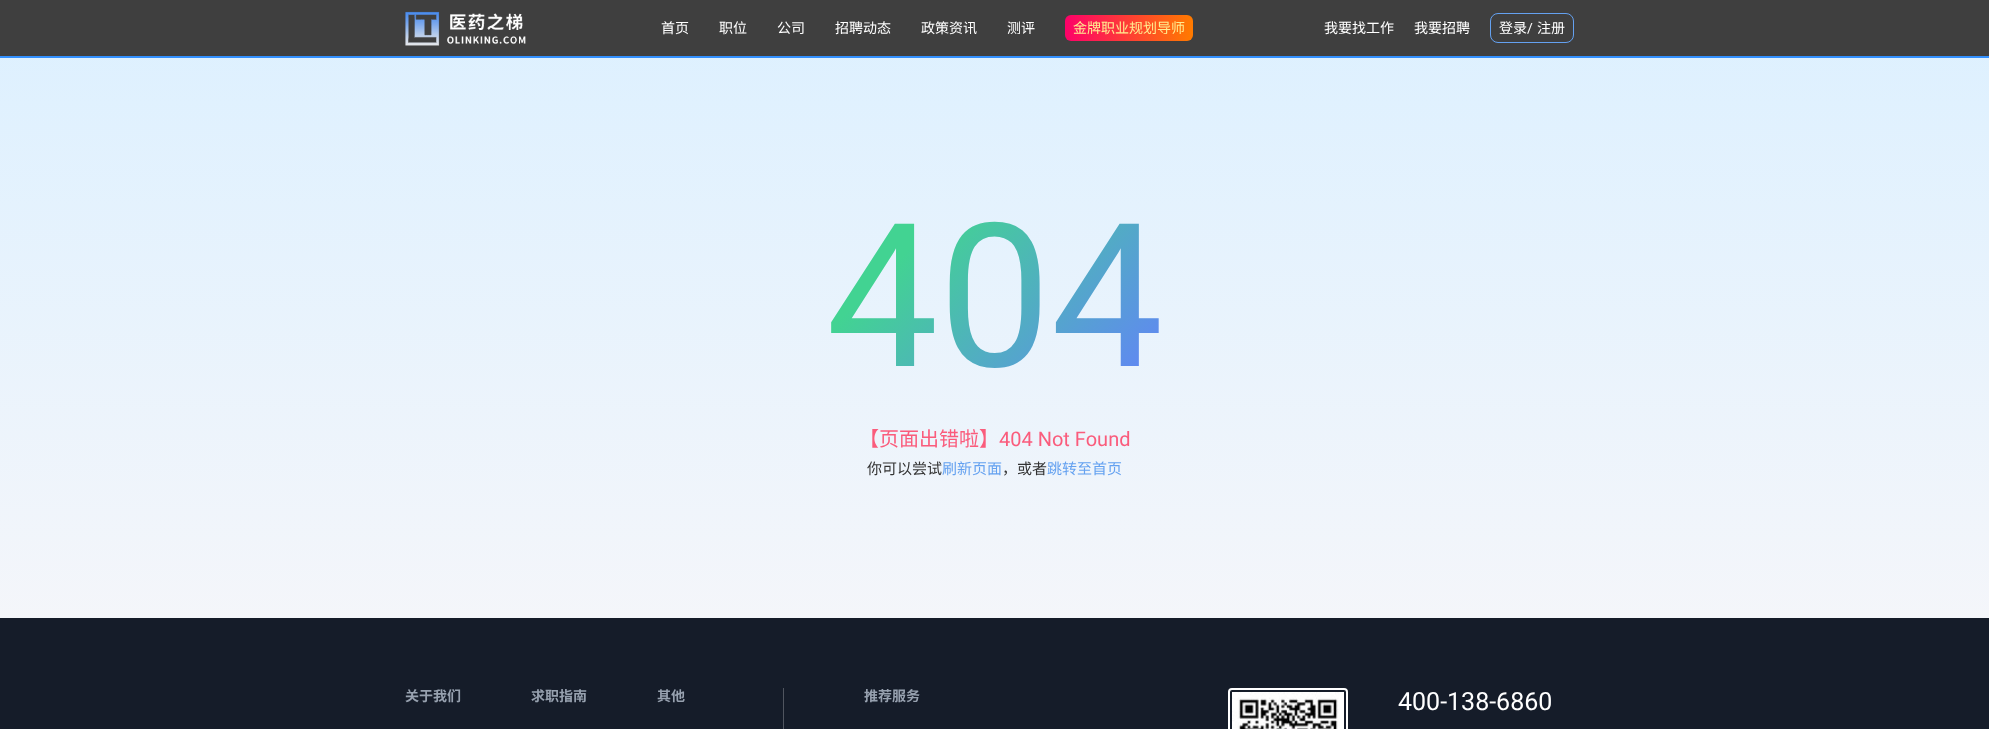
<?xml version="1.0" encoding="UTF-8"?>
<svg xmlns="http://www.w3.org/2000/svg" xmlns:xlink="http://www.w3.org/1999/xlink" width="1989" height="729">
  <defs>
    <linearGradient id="g1" gradientUnits="userSpaceOnUse" x1="860" y1="164" x2="1129" y2="432"><stop offset="0.25" stop-color="#42d392" /><stop offset="1" stop-color="#647eff" /></linearGradient>
    <linearGradient id="g2" gradientUnits="userSpaceOnUse" x1="995" y1="0" x2="995" y2="640"><stop offset="0" stop-color="#dcf0ff" /><stop offset="1" stop-color="#f5f6fa" /></linearGradient>
    <linearGradient id="g3" gradientUnits="userSpaceOnUse" x1="1065" y1="28" x2="1193" y2="28"><stop offset="0" stop-color="#fd0169" /><stop offset="0.99" stop-color="#ff7a00" /></linearGradient>
  </defs>
  <rect width="100%" height="100%" fill="#ffffff" />
  <rect y="58" width="1989" height="560" fill="url(#g2)" />
  <rect width="1989" height="56" fill="#3f3f3f" />
  <image x="405" y="11" width="121" height="35" xlink:href="image1.png" />
  <rect x="1065" y="15" width="128" height="26" rx="6" fill="url(#g3)" />
  <rect x="1490.5" y="13.5" width="83" height="29" rx="7.5" fill="none" stroke="#64a1f0" />
  <rect y="56" width="1989" height="2" fill="#3290ff" />
  <rect y="618" width="1989" height="111" fill="#151c29" />
  <rect x="783" y="688" width="1" height="41" fill="#50555f" />
  <rect x="1229" y="689" width="118" height="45" rx="3" fill="none" stroke="#ffffff" stroke-width="2" />
  <image x="1232" y="692" width="112" height="37" xlink:href="image2.png" />
  <text x="661" y="33" style="font-family: Noto Sans CJK SC; font-size: 14px; fill: #ffffff">首页</text>
  <text x="719" y="33" style="font-family: Noto Sans CJK SC; font-size: 14px; fill: #ffffff">职位</text>
  <text x="777" y="33" style="font-family: Noto Sans CJK SC; font-size: 14px; fill: #ffffff">公司</text>
  <text x="835" y="33" style="font-family: Noto Sans CJK SC; font-size: 14px; fill: #ffffff">招聘动态</text>
  <text x="921" y="33" style="font-family: Noto Sans CJK SC; font-size: 14px; fill: #ffffff">政策资讯</text>
  <text x="1007" y="33" style="font-family: Noto Sans CJK SC; font-size: 14px; fill: #ffffff">测评</text>
  <text x="1073" y="33" style="font-family: Noto Sans CJK SC; font-size: 14px; fill: #ffec90">金牌职业规划导师</text>
  <text x="1324" y="33" style="font-family: Noto Sans CJK SC; font-size: 14px; fill: #ffffff">我要找工作</text>
  <text x="1414" y="33" style="font-family: Noto Sans CJK SC; font-size: 14px; fill: #ffffff">我要招聘</text>
  <text x="1499" y="33" style="font-family: Noto Sans CJK SC; font-size: 14px; fill: #ffffff">登录</text>
  <text x="1527" y="33" style="font-family: Roboto; font-size: 14px; fill: #ffffff">/</text>
  <text x="1537" y="33" style="font-family: Noto Sans CJK SC; font-size: 14px; fill: #ffffff">注册</text>
  <text x="826" y="366" style="font-family: Roboto; font-size: 200px; fill: url(#g1)">404</text>
  <text x="859" y="446" style="font-family: Noto Sans CJK SC; font-size: 20px; fill: #fa5c7c">【页面出错啦】</text>
  <text x="999" y="446" style="font-family: Roboto; font-size: 20px; fill: #fa5c7c">404 Not Found</text>
  <text x="867" y="474" style="font-family: Noto Sans CJK SC; font-size: 15px; fill: #333333">你可以尝试</text>
  <text x="942" y="474" style="font-family: Noto Sans CJK SC; font-size: 15px; fill: #64a1f0">刷新页面</text>
  <text x="1002" y="474" style="font-family: Noto Sans CJK SC; font-size: 15px; fill: #333333">，或者</text>
  <text x="1047" y="474" style="font-family: Noto Sans CJK SC; font-size: 15px; fill: #64a1f0">跳转至首页</text>
  <text x="405" y="701" style="font-family: Noto Sans CJK SC; font-size: 14px; font-weight: bold; fill: #97a1af">关于我们</text>
  <text x="531" y="701" style="font-family: Noto Sans CJK SC; font-size: 14px; font-weight: bold; fill: #97a1af">求职指南</text>
  <text x="657" y="701" style="font-family: Noto Sans CJK SC; font-size: 14px; font-weight: bold; fill: #97a1af">其他</text>
  <text x="864" y="701" style="font-family: Noto Sans CJK SC; font-size: 14px; font-weight: bold; fill: #97a1af">推荐服务</text>
  <text x="1398" y="710" style="font-family: Roboto; font-size: 25px; fill: #ffffff">400-138-6860</text>
</svg>
